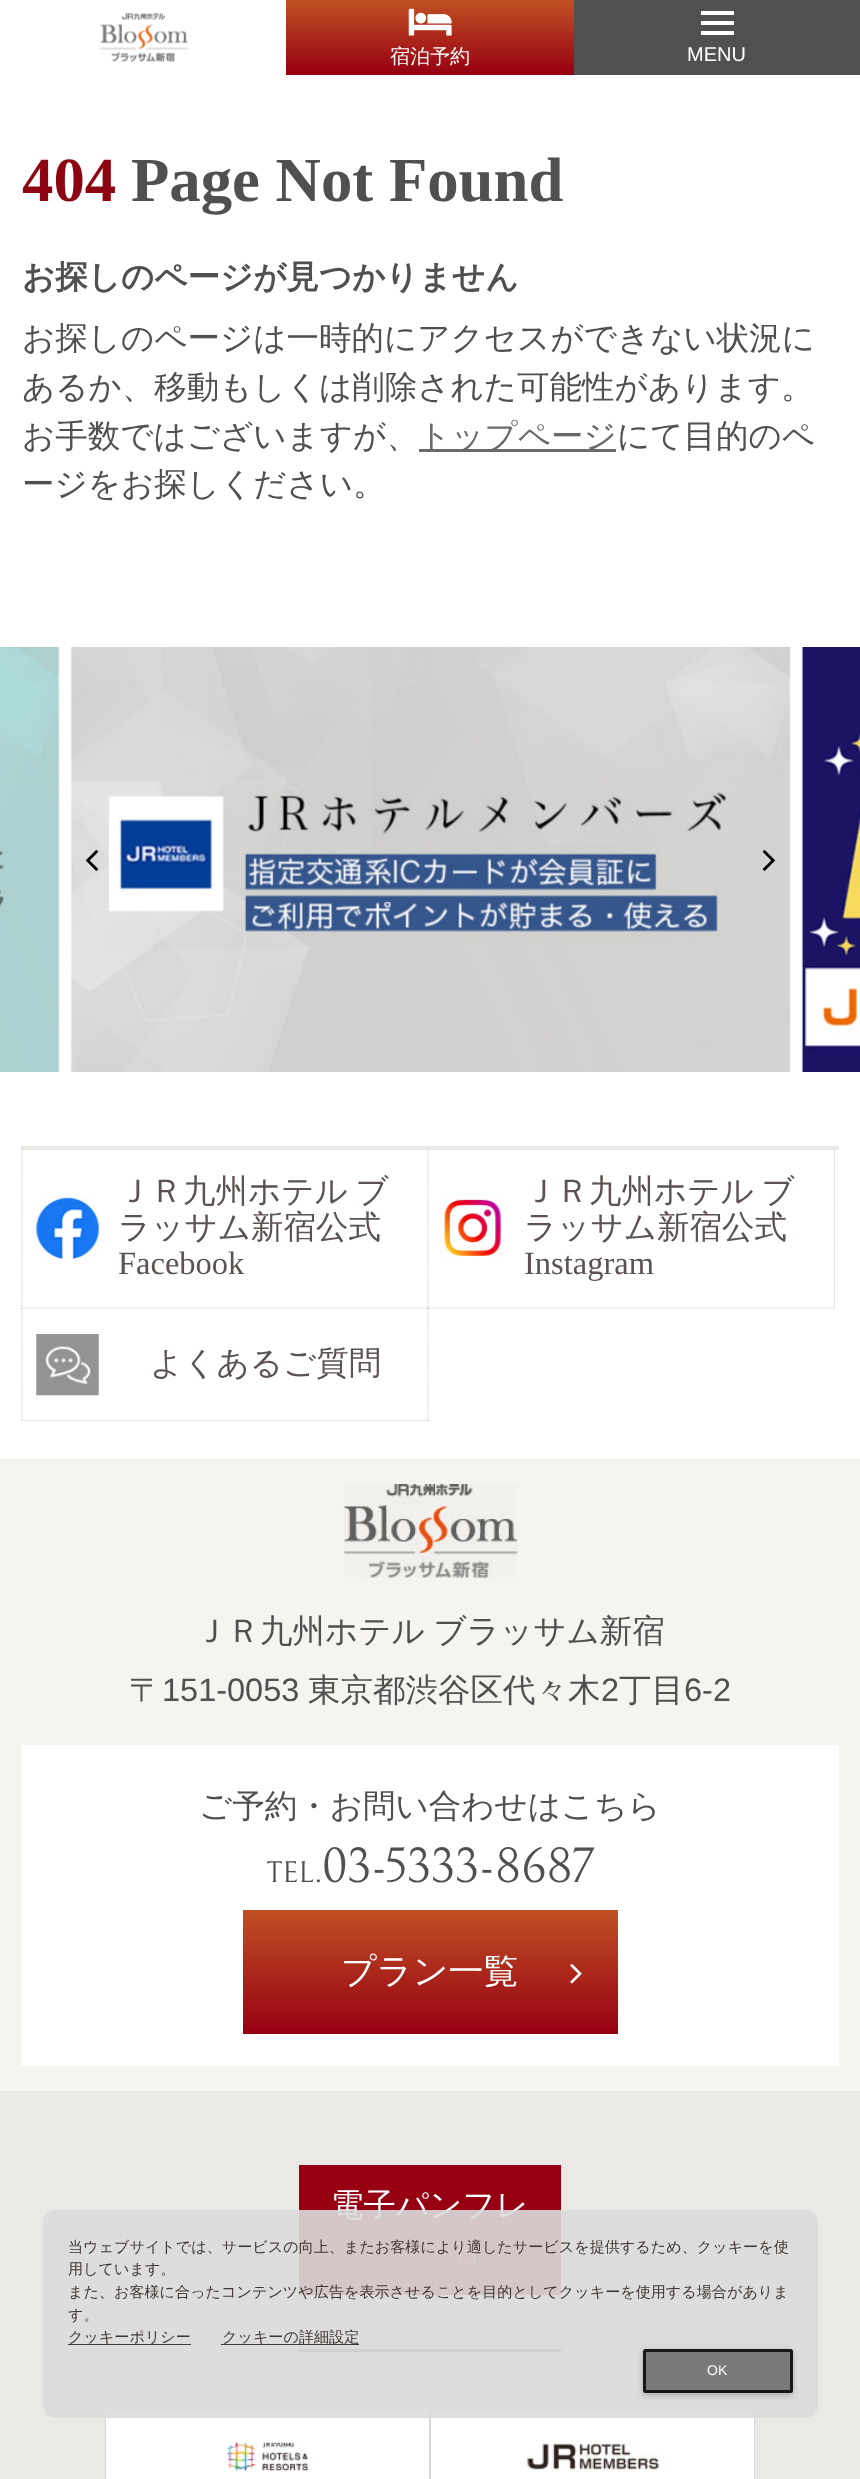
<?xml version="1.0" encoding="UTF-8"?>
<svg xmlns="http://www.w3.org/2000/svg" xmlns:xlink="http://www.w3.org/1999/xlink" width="860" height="2479">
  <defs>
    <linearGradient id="g1" gradientUnits="userSpaceOnUse" x1="430" y1="0" x2="430" y2="75"><stop offset="0" stop-color="#c05024" /><stop offset="1" stop-color="#960012" /></linearGradient>
    <clipPath id="clip1"><rect y="609" width="860" height="812" /></clipPath>
    <linearGradient id="g2" gradientUnits="userSpaceOnUse" x1="430" y1="1910" x2="430" y2="2034"><stop offset="0" stop-color="#c05024" /><stop offset="1" stop-color="#960012" /></linearGradient>
  </defs>
  <rect width="100%" height="100%" fill="#ffffff" />
  <image x="100" y="12" width="88" height="50" xlink:href="image1.png" />
  <rect x="286" width="288" height="75" fill="url(#g1)" />
  <image x="408" y="8" width="44" height="28" xlink:href="image2.png" />
  <rect x="574" width="286" height="75" fill="#505050" />
  <rect x="701" y="11" width="33" height="4" fill="#ffffff" />
  <rect x="701" y="21" width="33" height="4" fill="#ffffff" />
  <rect x="701" y="31" width="33" height="4" fill="#ffffff" />
  <rect x="419" y="449" width="197" height="3" fill="#6a6a6a" />
  <image x="0" y="647" width="59" height="425" xlink:href="image3.png" />
  <image x="70" y="647" width="721" height="425" xlink:href="image4.png" />
  <image x="801" y="647" width="59" height="425" xlink:href="image5.png" />
  <image x="86" y="850" width="13" height="21" xlink:href="image6.png" />
  <image x="762" y="850" width="13" height="21" xlink:href="image7.png" />
  <rect x="21" y="1146" width="818" height="4" fill="#eae9e6" />
  <path d="M 428 1150 v 159" fill="none" stroke="#cccccc" stroke-width="1.2" stroke-dasharray="1.25 1.25" />
  <path d="M 21 1308 h 408" fill="none" stroke="#cccccc" stroke-width="1.2" stroke-dasharray="1.25 1.25" />
  <path d="M 22 1150 v 159" fill="none" stroke="#cccccc" stroke-width="1.2" stroke-dasharray="1.25 1.25" />
  <image x="36" y="1197" width="63" height="62" xlink:href="image8.png" />
  <path d="M 834.5 1150 v 159" fill="none" stroke="#cccccc" stroke-width="1.2" stroke-dasharray="1.25 1.25" />
  <path d="M 429 1308 h 406" fill="none" stroke="#cccccc" stroke-width="1.2" stroke-dasharray="1.25 1.25" />
  <image x="442" y="1198" width="60" height="59" xlink:href="image9.png" />
  <path d="M 428 1309 v 112" fill="none" stroke="#cccccc" stroke-width="1.2" stroke-dasharray="1.25 1.25" />
  <g clip-path="url(#clip1)">
    <path d="M 21 1420.5 h 408" fill="none" stroke="#cccccc" stroke-width="1.2" stroke-dasharray="1.25 1.25" />
  </g>
  <path d="M 22 1309 v 112" fill="none" stroke="#cccccc" stroke-width="1.2" stroke-dasharray="1.25 1.25" />
  <image x="36" y="1334" width="63" height="62" xlink:href="image10.png" />
  <rect y="1459" width="860" height="632" fill="#f5f4f1" />
  <image x="343" y="1484" width="175" height="94" xlink:href="image11.png" />
  <rect x="21" y="1745" width="818" height="321" fill="#ffffff" />
  <rect x="243" y="1910" width="375" height="124" fill="url(#g2)" />
  <image x="570" y="1964" width="12" height="20" xlink:href="image12.png" />
  <rect y="2091" width="860" height="388" fill="#eae9e6" />
  <rect x="299" y="2165" width="262" height="130" fill="#960012" />
  <image x="458" y="2250" width="17" height="13" xlink:href="image13.png" />
  <rect x="299" y="2349" width="262" height="3" fill="#6a6a6a" />
  <rect x="105.5" y="2409.5" width="324" height="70" fill="#ffffff" stroke="#d9d8d8" />
  <image x="227" y="2442" width="81" height="29" xlink:href="image14.png" />
  <rect x="430.5" y="2409.5" width="324" height="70" fill="#ffffff" stroke="#d9d8d8" />
  <image x="527" y="2443" width="132" height="28" xlink:href="image15.png" />
  <text x="390" y="63" style="font-family: WenQuanYi Zen Hei; font-size: 20px; font-weight: 500; fill: #ffffff">宿泊予約</text>
  <text x="687" y="61" style="font-family: Liberation Sans; font-size: 20px; fill: #ffffff">MENU</text>
  <text x="22" y="201" style="font-family: Liberation Serif; font-size: 62.75px; font-weight: bold; fill: #8d0512">404</text>
  <text x="131" y="201" style="font-family: Liberation Serif; font-size: 62.75px; font-weight: bold; fill: #505050">Page Not Found</text>
  <text x="22" y="288" style="font-family: WenQuanYi Zen Hei; font-size: 32.5px; font-weight: bold; fill: #505050">お探しのページが見つかりません</text>
  <text x="22" y="349" style="font-family: WenQuanYi Zen Hei; font-size: 32.5px; font-weight: 500; fill: #505050">お探しのページは一時的にアクセスができない状況に</text>
  <text x="22" y="398" style="font-family: WenQuanYi Zen Hei; font-size: 32.5px; font-weight: 500; fill: #505050">あるか、移動もしくは削除された可能性があります。</text>
  <text x="22" y="447" style="font-family: WenQuanYi Zen Hei; font-size: 32.5px; font-weight: 500; fill: #505050">お手数ではございますが、</text>
  <text x="418" y="447" style="font-family: WenQuanYi Zen Hei; font-size: 32.5px; font-weight: 500; fill: #6a6a6a">トップページ</text>
  <text x="617" y="447" style="font-family: WenQuanYi Zen Hei; font-size: 32.5px; font-weight: 500; fill: #505050">にて目的のペ</text>
  <text x="22" y="495" style="font-family: WenQuanYi Zen Hei; font-size: 32.5px; font-weight: 500; fill: #505050">ージをお探しください。</text>
  <text x="118" y="1202" word-spacing="-2" style="font-family: WenQuanYi Zen Hei; font-size: 32.5px; font-weight: 500; fill: #5d5252">ＪＲ九州ホテル ブ</text>
  <text x="118" y="1238" style="font-family: WenQuanYi Zen Hei; font-size: 32.5px; font-weight: 500; fill: #5d5252">ラッサム新宿公式</text>
  <text x="118" y="1274" style="font-family: Liberation Serif; font-size: 32.5px; fill: #5d5252">Facebook</text>
  <text x="524" y="1202" word-spacing="-2" style="font-family: WenQuanYi Zen Hei; font-size: 32.5px; font-weight: 500; fill: #5d5252">ＪＲ九州ホテル ブ</text>
  <text x="524" y="1238" style="font-family: WenQuanYi Zen Hei; font-size: 32.5px; font-weight: 500; fill: #5d5252">ラッサム新宿公式</text>
  <text x="524" y="1274" style="font-family: Liberation Serif; font-size: 32.5px; fill: #5d5252">Instagram</text>
  <text x="150" y="1374" style="font-family: WenQuanYi Zen Hei; font-size: 32.5px; font-weight: 500; fill: #5d5252">よくあるご質問</text>
  <text x="195" y="1642" word-spacing="-1" style="font-family: WenQuanYi Zen Hei; font-size: 32.5px; font-weight: 500; fill: #505050">ＪＲ九州ホテル ブラッサム新宿</text>
  <text x="129" y="1701" style="font-family: WenQuanYi Zen Hei; font-size: 32.5px; font-weight: 500; fill: #505050">〒</text>
  <text x="162" y="1701" style="font-family: Liberation Sans; font-size: 32.5px; fill: #505050">151-0053</text>
  <text x="308" y="1701" style="font-family: WenQuanYi Zen Hei; font-size: 32.5px; font-weight: 500; fill: #505050">東京都渋谷区代々木</text>
  <text x="601" y="1701" style="font-family: Liberation Sans; font-size: 32.5px; fill: #505050">2</text>
  <text x="619" y="1701" style="font-family: WenQuanYi Zen Hei; font-size: 32.5px; font-weight: 500; fill: #505050">丁目</text>
  <text x="684" y="1701" style="font-family: Liberation Sans; font-size: 32.5px; fill: #505050">6-2</text>
  <text x="199" y="1817" style="font-family: WenQuanYi Zen Hei; font-size: 32.5px; font-weight: 500; fill: #505050">ご予約・お問い合わせはこちら</text>
  <text x="266" y="1882" style="font-family: Bellefair; font-size: 30px; fill: #505050">TEL.</text>
  <text x="322" y="1882" style="font-family: Bellefair; font-size: 50px; fill: #505050">03-5333-8687</text>
  <text x="341" y="1983" style="font-family: WenQuanYi Zen Hei; font-size: 35px; font-weight: 500; fill: #ffffff">プラン一覧</text>
  <text x="331" y="2216" style="font-family: WenQuanYi Zen Hei; font-size: 32.5px; font-weight: 500; fill: #ffffff">電子パンフレ</text>
  <rect x="43" y="2210" width="775" height="208" rx="13" fill="#dcdcdc" fill-opacity="0.9" />
  <text x="68" y="2252" style="font-family: WenQuanYi Zen Hei; font-size: 15.1px; font-weight: 500; fill: #413733">当ウェブサイトでは、サービスの向上、またお客様により適したサービスを提供するため、クッキーを使</text>
  <text x="68" y="2274" style="font-family: WenQuanYi Zen Hei; font-size: 15.1px; font-weight: 500; fill: #413733">用しています。</text>
  <text x="68" y="2297" style="font-family: WenQuanYi Zen Hei; font-size: 15.1px; font-weight: 500; fill: #413733">また、お客様に合ったコンテンツや広告を表示させることを目的としてクッキーを使用する場合がありま</text>
  <text x="68" y="2320" style="font-family: WenQuanYi Zen Hei; font-size: 15.1px; font-weight: 500; fill: #413733">す。</text>
  <rect x="68" y="2344" width="123" height="1" fill="#433a35" />
  <text x="68" y="2342" style="font-family: WenQuanYi Zen Hei; font-size: 15.1px; font-weight: 500; fill: #413733">クッキーポリシー</text>
  <rect x="221" y="2344" width="138" height="1" fill="#302621" fill-opacity="0.9" />
  <text x="222" y="2342" style="font-family: WenQuanYi Zen Hei; font-size: 15.1px; font-weight: 500; fill: #413733">クッキーの詳細設定</text>
  <rect x="643" y="2351" width="150" height="44" rx="2.5" fill="#171717" fill-opacity="0.26" filter="blur(3px)" />
  <rect x="644.5" y="2350.5" width="147" height="41" rx="1" fill="#7b7a79" stroke="#171717" stroke-width="3" />
  <text x="707" y="2375" style="font-family: Liberation Sans; font-size: 14px; fill: #ffffff">OK</text>
</svg>
